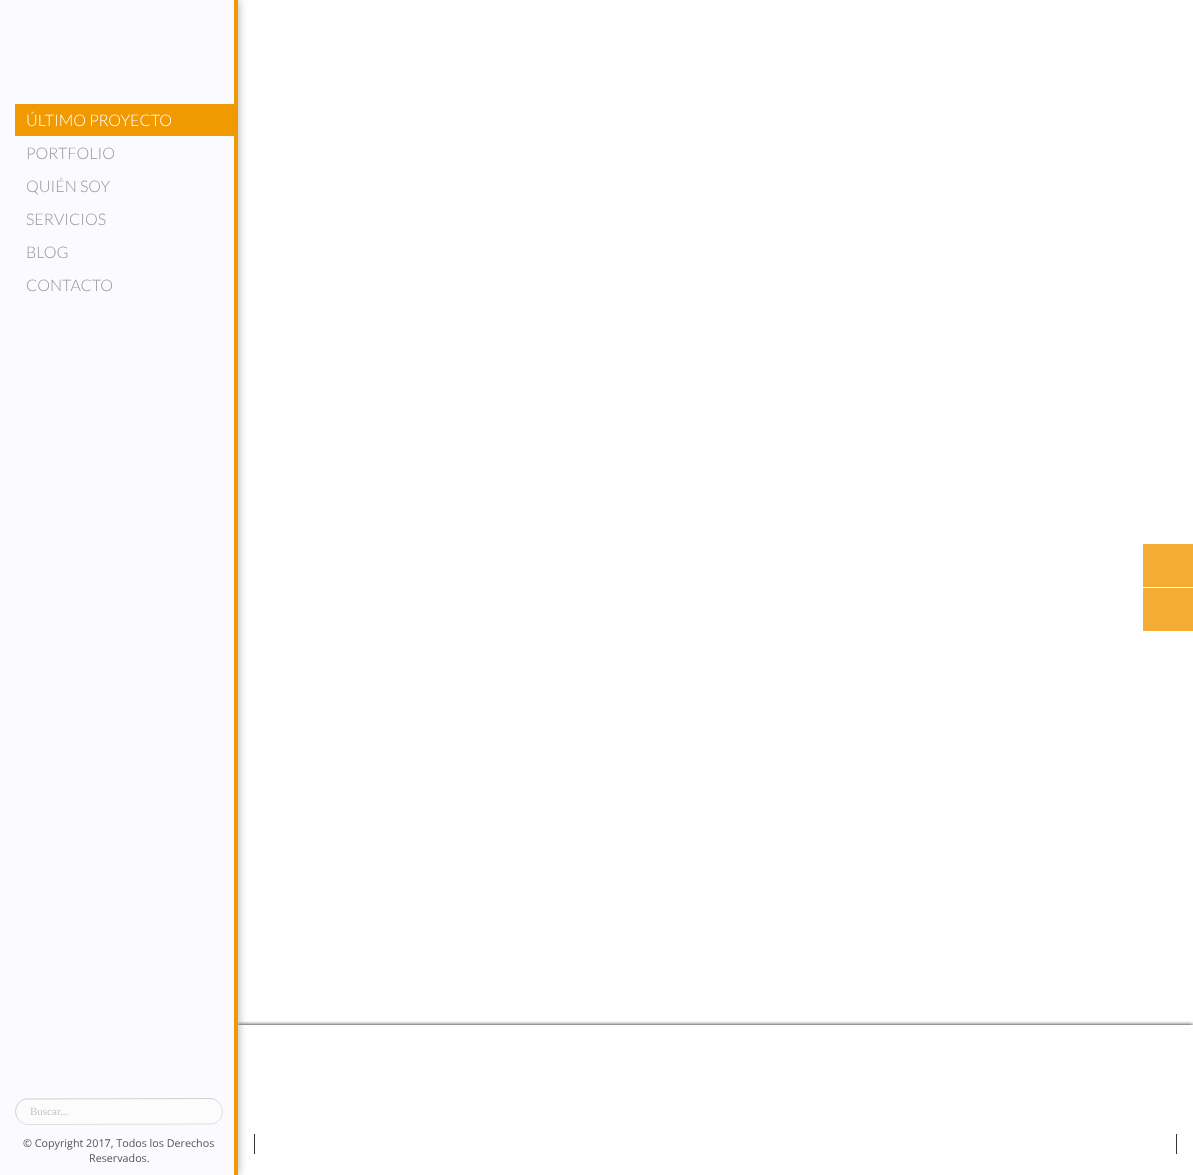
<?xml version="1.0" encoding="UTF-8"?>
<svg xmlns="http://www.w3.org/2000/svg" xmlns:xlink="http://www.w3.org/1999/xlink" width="1193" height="1175">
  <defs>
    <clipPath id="clip1"><rect x="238" y="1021" width="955" height="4" /></clipPath>
  </defs>
  <rect width="100%" height="100%" fill="#ffffff" />
  <rect width="238" height="1175" fill="#000000" fill-opacity="0.33" filter="blur(5px)" />
  <g clip-path="url(#clip1)">
    <rect x="238" y="1025" width="955" height="150" fill="#000000" filter="blur(2px)" />
  </g>
  <rect width="234" height="1175" fill="#fafaff" />
  <rect x="234" width="4" height="1175" fill="#f19900" />
  <rect x="15" y="104" width="219" height="32" fill="#f19900" />
  <rect x="15" y="1098" width="208" height="27" rx="13.5" fill="#fcfcfc" />
  <path d="M 218.5 1102.5 c 7.5 7 3.5 20 -6.5 21.5 l -185 0.5 c -3 -0.5 -5.5 -1.5 -7.5 -4" fill="none" stroke="#dddddd" />
  <path d="M 19.5 1120.5 c -7.5 -7 -3.5 -20 6.5 -21.5 l 185 -0.5 c 3 0.5 5.5 1.5 7.5 4" fill="none" stroke="#d1d1d1" />
  <rect x="1143" y="544" width="50" height="43" fill="#f4ad33" />
  <rect x="1143" y="588" width="50" height="43" fill="#f4ad33" />
  <rect x="254" y="1134" width="1" height="20" fill="#333333" />
  <rect x="1176" y="1134" width="1" height="20" fill="#333333" />
  <text x="26" y="126" style="font-family: Lato; font-size: 16px; font-weight: 300; fill: #ffffff">ÚLTIMO PROYECTO</text>
  <text x="26" y="159" style="font-family: Lato; font-size: 16px; font-weight: 300; fill: #979797">PORTFOLIO</text>
  <text x="26" y="192" style="font-family: Lato; font-size: 16px; font-weight: 300; fill: #979797">QUIÉN SOY</text>
  <text x="26" y="225" style="font-family: Lato; font-size: 16px; font-weight: 300; fill: #979797">SERVICIOS</text>
  <text x="26" y="258" style="font-family: Lato; font-size: 16px; font-weight: 300; fill: #979797">BLOG</text>
  <text x="26" y="291" style="font-family: Lato; font-size: 16px; font-weight: 300; fill: #979797">CONTACTO</text>
  <text x="30" y="1115" style="font-family: Liberation Serif; font-size: 11px; fill: #c5c5c5">Buscar...</text>
  <text x="23" y="1147" style="font-family: Open Sans; font-size: 10.75px; fill: #555555">© Copyright 2017, Todos los Derechos</text>
  <text x="89" y="1162" style="font-family: Open Sans; font-size: 10.75px; fill: #555555">Reservados.</text>
</svg>
